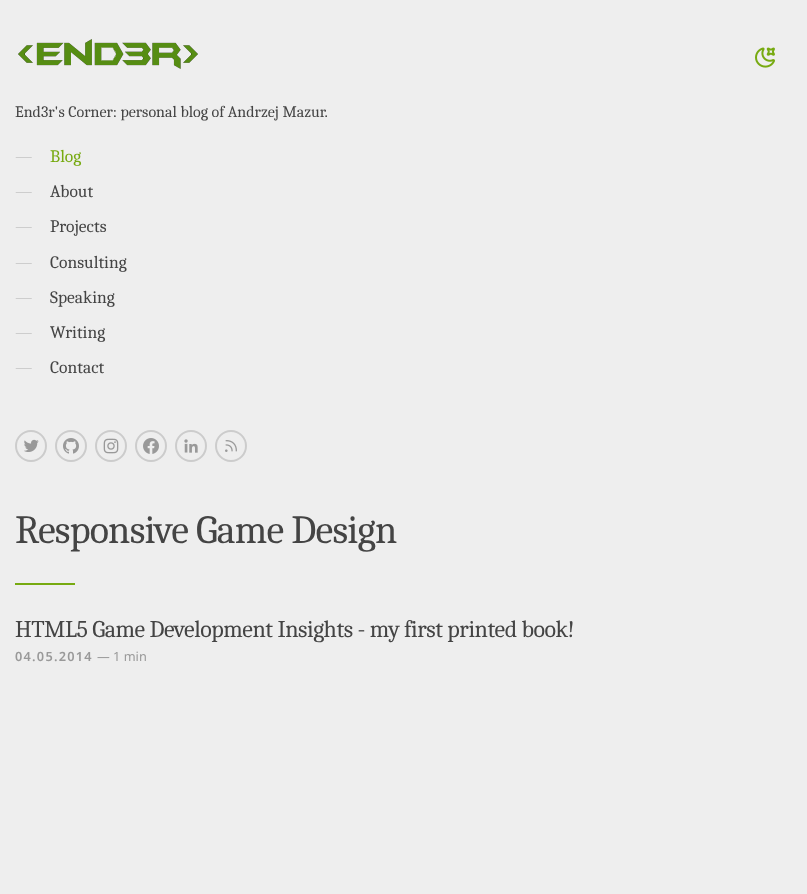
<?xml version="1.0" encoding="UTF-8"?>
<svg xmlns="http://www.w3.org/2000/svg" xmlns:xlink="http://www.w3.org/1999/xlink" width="807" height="894">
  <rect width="100%" height="100%" fill="#eeeeee" />
  <image x="18" y="39" width="180" height="30" xlink:href="image1.png" />
  <image x="755" y="47" width="20" height="21" xlink:href="image2.png" />
  <circle cx="31" cy="446" r="15" fill="none" stroke="#cccccc" stroke-width="2" />
  <image x="24" y="439" width="15" height="13" xlink:href="image3.png" />
  <circle cx="71" cy="446" r="15" fill="none" stroke="#cccccc" stroke-width="2" />
  <image x="63" y="438" width="16" height="16" xlink:href="image4.png" />
  <circle cx="111" cy="446" r="15" fill="none" stroke="#cccccc" stroke-width="2" />
  <image x="103" y="438" width="16" height="16" xlink:href="image5.png" />
  <circle cx="151" cy="446" r="15" fill="none" stroke="#cccccc" stroke-width="2" />
  <image x="143" y="438" width="16" height="16" xlink:href="image6.png" />
  <circle cx="191" cy="446" r="15" fill="none" stroke="#cccccc" stroke-width="2" />
  <image x="184" y="439" width="14" height="14" xlink:href="image7.png" />
  <circle cx="231" cy="446" r="15" fill="none" stroke="#cccccc" stroke-width="2" />
  <image x="225" y="440" width="12" height="12" xlink:href="image8.png" />
  <rect x="15" y="583" width="60" height="2" fill="#77aa11" />
  <text x="15" y="117" style="font-family: Caladea; font-size: 16px; fill: #444444">End3r's Corner: personal blog of Andrzej Mazur.</text>
  <text x="15" y="162" style="font-family: Caladea; font-size: 17.5px; fill: #cccccc">—</text>
  <text x="50" y="162" style="font-family: Caladea; font-size: 17.5px; fill: #77aa11">Blog</text>
  <text x="15" y="197" style="font-family: Caladea; font-size: 17.5px; fill: #cccccc">—</text>
  <text x="50" y="197" style="font-family: Caladea; font-size: 17.5px; fill: #444444">About</text>
  <text x="15" y="232" style="font-family: Caladea; font-size: 17.5px; fill: #cccccc">—</text>
  <text x="50" y="232" style="font-family: Caladea; font-size: 17.5px; fill: #444444">Projects</text>
  <text x="15" y="268" style="font-family: Caladea; font-size: 17.5px; fill: #cccccc">—</text>
  <text x="50" y="268" style="font-family: Caladea; font-size: 17.5px; fill: #444444">Consulting</text>
  <text x="15" y="303" style="font-family: Caladea; font-size: 17.5px; fill: #cccccc">—</text>
  <text x="50" y="303" style="font-family: Caladea; font-size: 17.5px; fill: #444444">Speaking</text>
  <text x="15" y="338" style="font-family: Caladea; font-size: 17.5px; fill: #cccccc">—</text>
  <text x="50" y="338" style="font-family: Caladea; font-size: 17.5px; fill: #444444">Writing</text>
  <text x="15" y="373" style="font-family: Caladea; font-size: 17.5px; fill: #cccccc">—</text>
  <text x="50" y="373" style="font-family: Caladea; font-size: 17.5px; fill: #444444">Contact</text>
  <text x="15" y="543" style="font-family: Caladea; font-size: 40px; letter-spacing: -0.8px; fill: #444444">Responsive Game Design</text>
  <text x="15" y="637" style="font-family: Caladea; font-size: 24px; letter-spacing: -0.48px; fill: #444444">HTML5 Game Development Insights - my first printed book!</text>
  <text x="15" y="661" style="font-family: Noto Sans; font-size: 12.75px; font-weight: 600; letter-spacing: 1.25px; fill: #999999">04.05.2014</text>
  <text x="97" y="661" style="font-family: Noto Sans; font-size: 12.75px; fill: #999999">— 1 min</text>
</svg>
